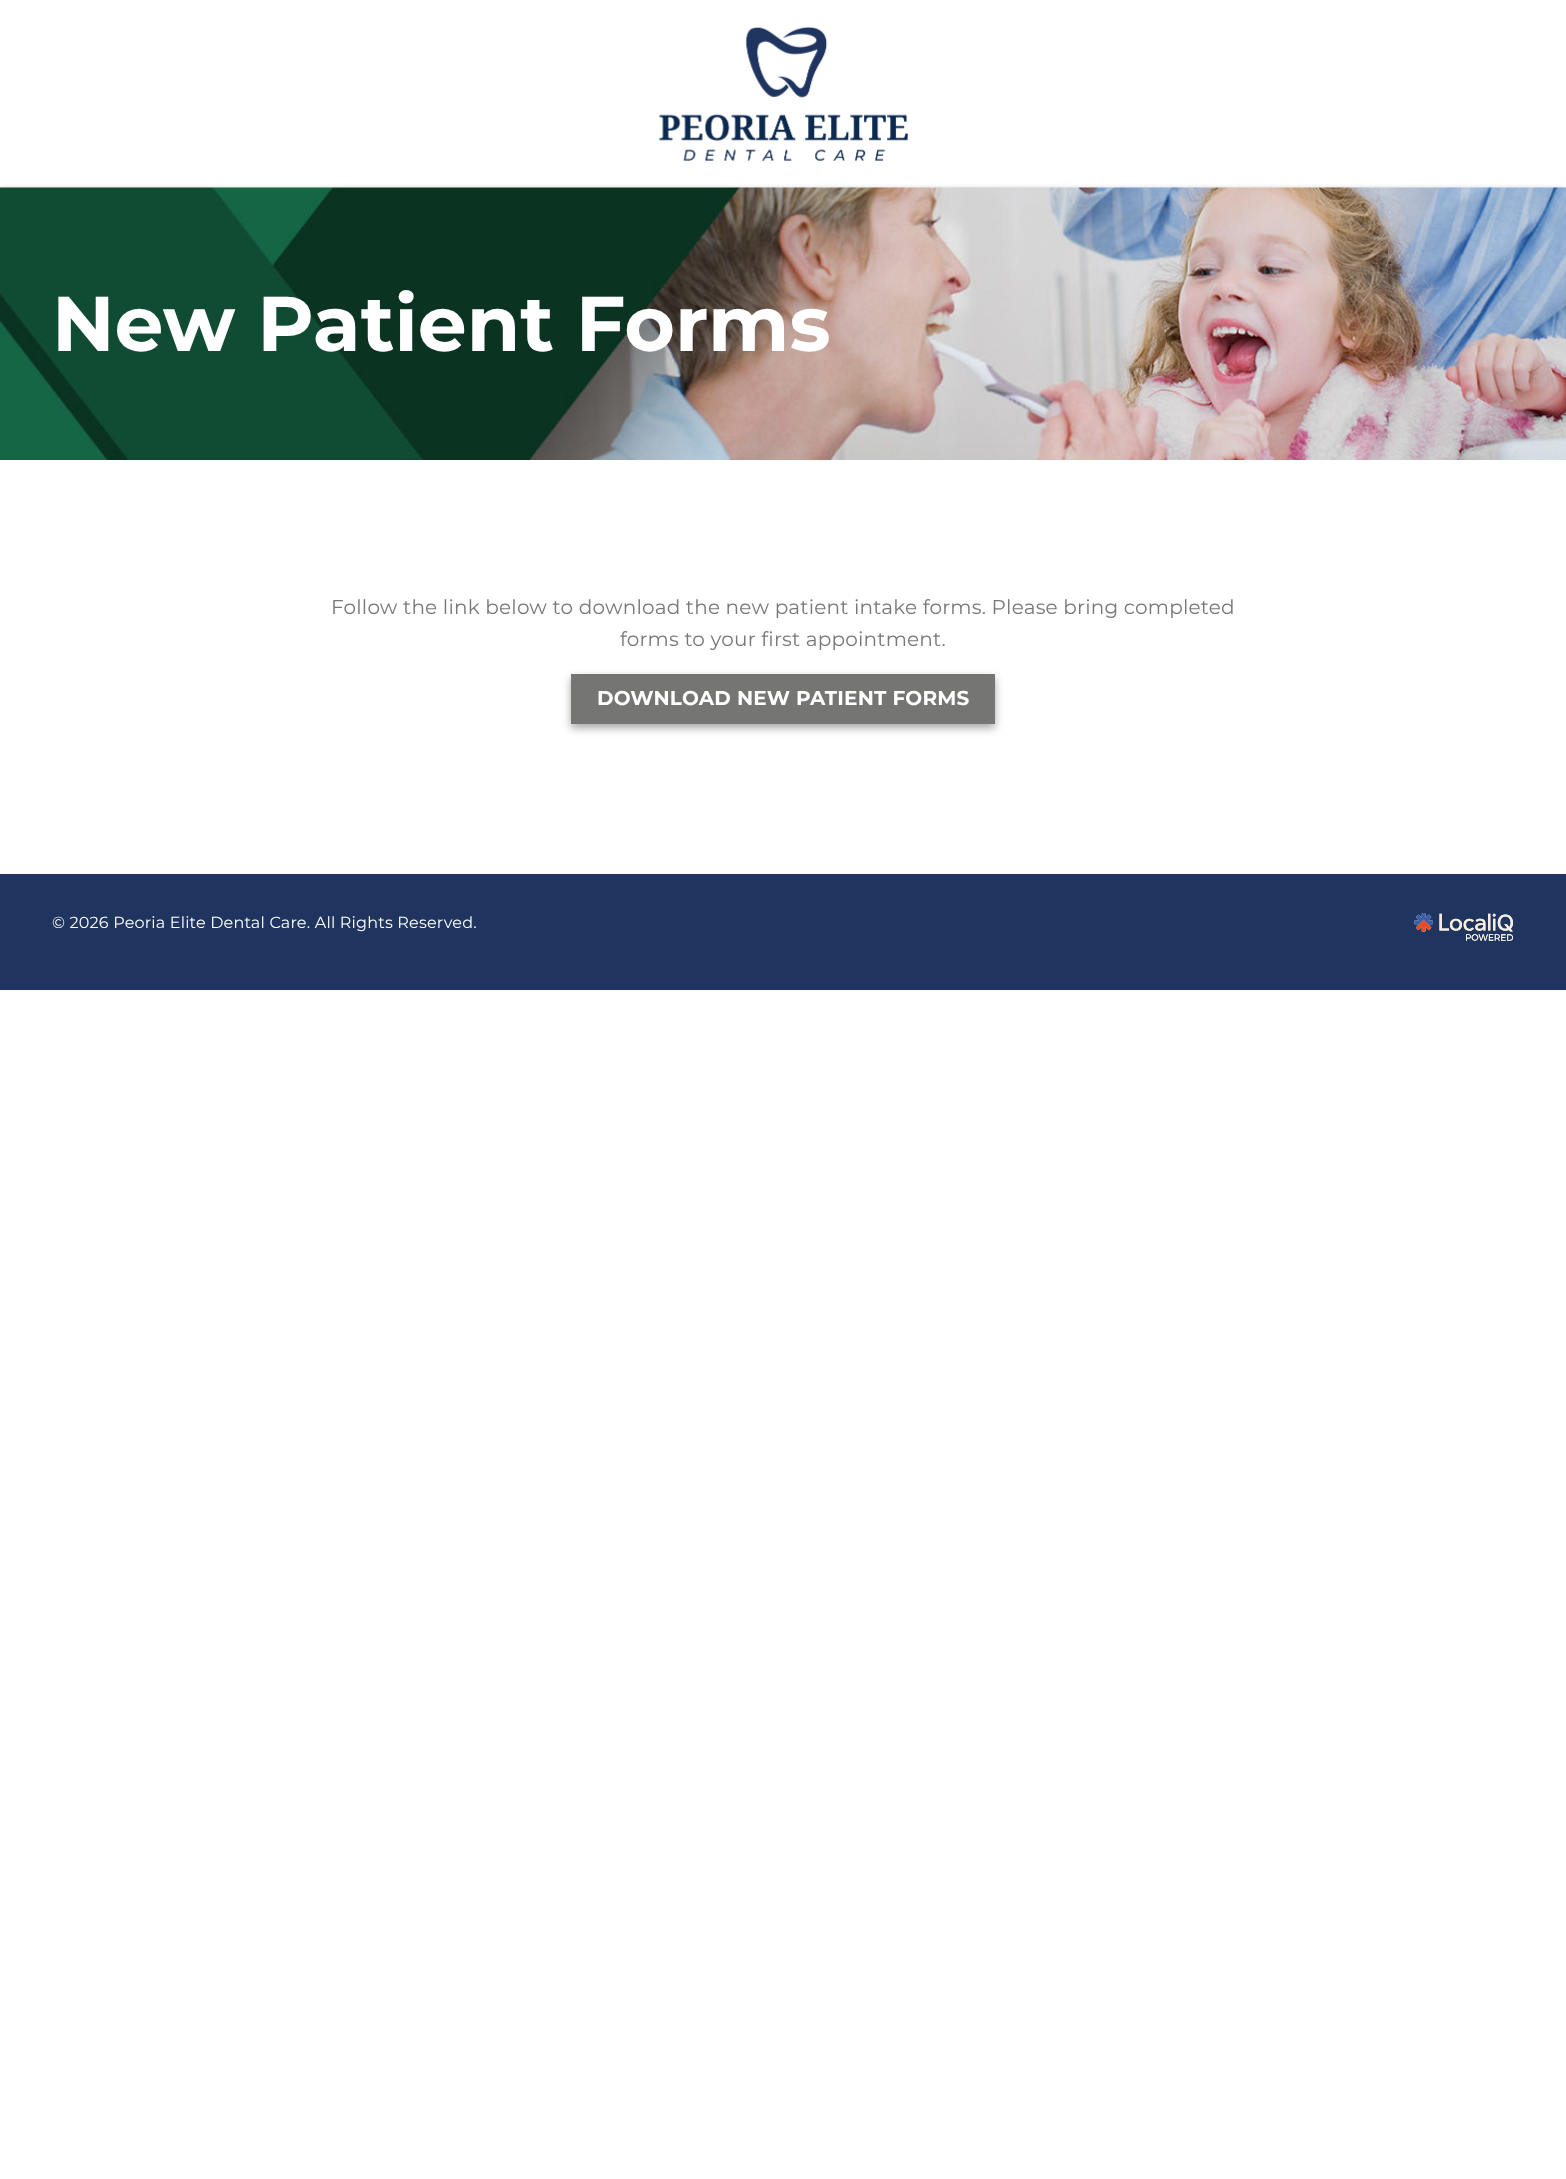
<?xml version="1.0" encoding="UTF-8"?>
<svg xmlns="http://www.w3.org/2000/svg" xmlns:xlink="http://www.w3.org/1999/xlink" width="1566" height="2179">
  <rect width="100%" height="100%" fill="#ffffff" />
  <image x="659" y="26" width="250" height="135" xlink:href="image1.png" />
  <rect y="190" width="1566" height="273" fill="#a1a1a1" filter="blur(3px)" />
  <image x="0" y="187" width="1566" height="273" xlink:href="image2.png" />
  <rect y="460" width="1566" height="9" fill="#ffffff" />
  <rect x="571" y="678" width="424" height="50" fill="#000000" fill-opacity="0.35" filter="blur(4.5px)" />
  <rect x="571" y="674" width="424" height="50" fill="#757574" />
  <rect y="874" width="1566" height="116" fill="#1f355f" />
  <image x="1414" y="913" width="99" height="28" xlink:href="image3.png" />
  <text x="52" y="351" style="font-family: Montserrat; font-size: 77.5px; font-weight: bold; fill: #ffffff">New Patient Forms</text>
  <text x="331" y="614" style="font-family: Montserrat; font-size: 20px; letter-spacing: 0.2px; fill: #787878">Follow the link below to download the new patient intake forms. Please bring completed</text>
  <text x="620" y="646" style="font-family: Montserrat; font-size: 20px; letter-spacing: 0.2px; fill: #787878">forms to your first appointment.</text>
  <text x="597" y="705" style="font-family: Montserrat; font-size: 20px; font-weight: bold; letter-spacing: 0.2px; fill: #ffffff">DOWNLOAD NEW PATIENT FORMS</text>
  <text x="52" y="928" style="font-family: Montserrat; font-size: 16px; letter-spacing: 0.2px; fill: #ffffff">© 2026 Peoria Elite Dental Care. All Rights Reserved.</text>
</svg>
